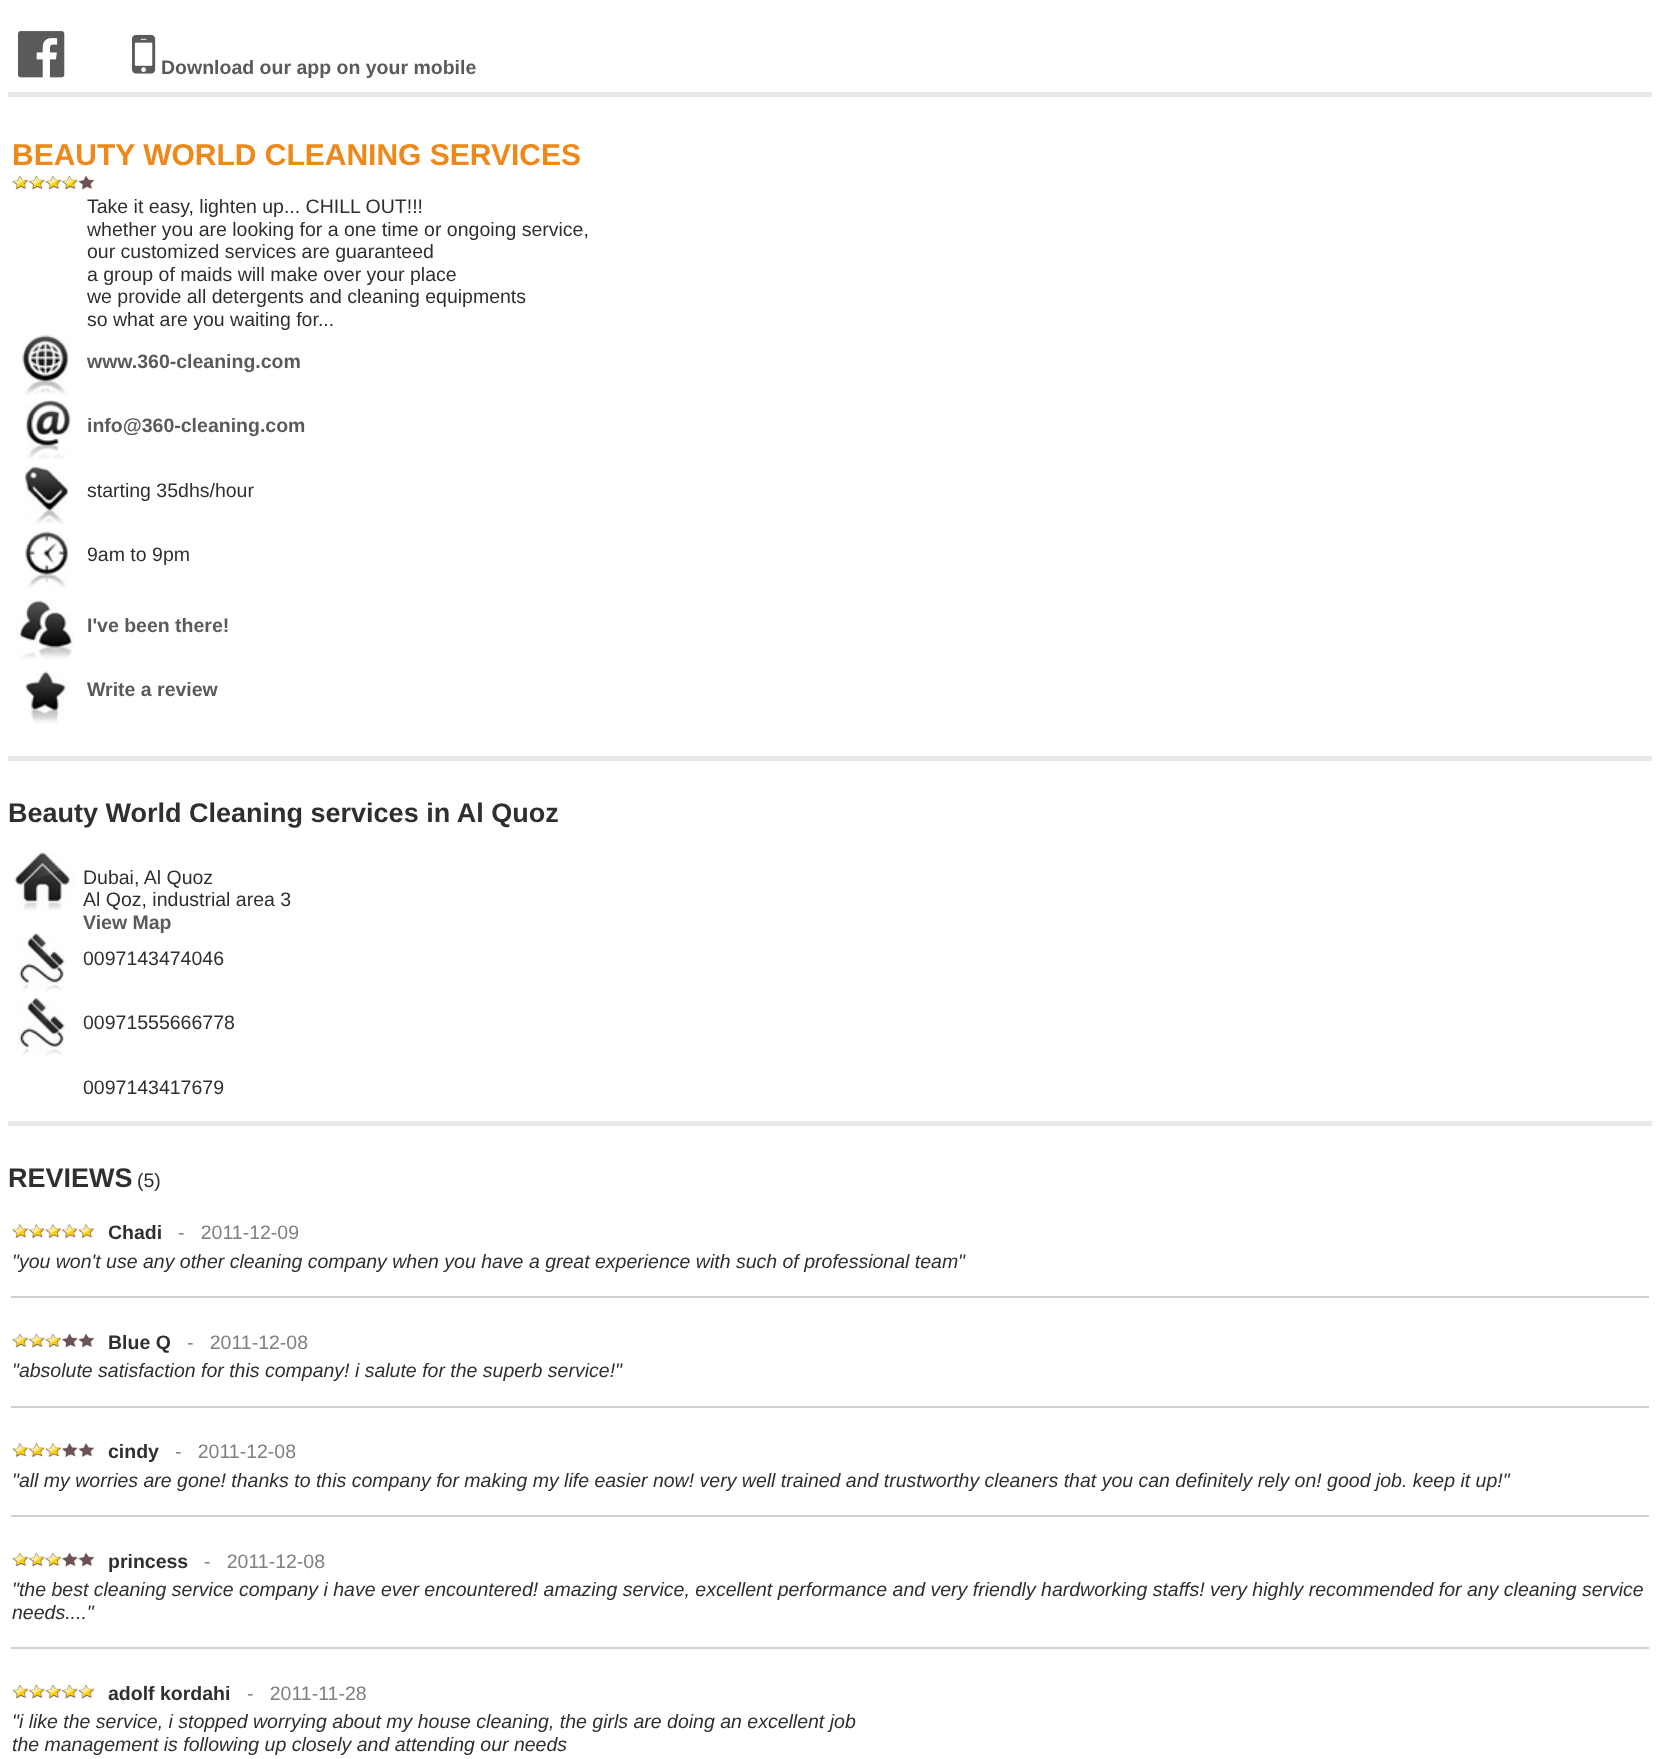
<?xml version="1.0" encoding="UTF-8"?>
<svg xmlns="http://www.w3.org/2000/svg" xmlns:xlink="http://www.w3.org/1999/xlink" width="1658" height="1759">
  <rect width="100%" height="100%" fill="#ffffff" />
  <image x="18" y="31" width="47" height="47" xlink:href="image1.png" />
  <image x="132" y="34" width="24" height="40" xlink:href="image2.png" />
  <rect x="8" y="92" width="1644" height="5" fill="#e8e8e8" />
  <image x="12" y="175" width="17" height="15" xlink:href="image3.png" />
  <image x="28" y="175" width="17" height="15" xlink:href="image4.png" />
  <image x="45" y="175" width="17" height="15" xlink:href="image3.png" />
  <image x="61" y="175" width="17" height="15" xlink:href="image4.png" />
  <image x="78" y="175" width="17" height="15" xlink:href="image5.png" />
  <image x="22" y="335" width="47" height="60" xlink:href="image6.png" />
  <image x="25" y="400" width="47" height="59" xlink:href="image7.png" />
  <image x="24" y="466" width="45" height="58" xlink:href="image8.png" />
  <image x="25" y="529" width="44" height="60" xlink:href="image9.png" />
  <image x="15" y="600" width="59" height="59" xlink:href="image10.png" />
  <image x="25" y="671" width="44" height="53" xlink:href="image11.png" />
  <rect x="8" y="756" width="1644" height="5" fill="#e8e8e8" />
  <image x="14" y="852" width="61" height="59" xlink:href="image12.png" />
  <image x="17" y="933" width="48" height="59" xlink:href="image13.png" />
  <image x="17" y="998" width="48" height="58" xlink:href="image14.png" />
  <rect x="8" y="1121" width="1644" height="5" fill="#e8e8e8" />
  <image x="12" y="1224" width="17" height="15" xlink:href="image15.png" />
  <image x="28" y="1224" width="17" height="15" xlink:href="image16.png" />
  <image x="45" y="1224" width="17" height="15" xlink:href="image15.png" />
  <image x="61" y="1224" width="17" height="15" xlink:href="image16.png" />
  <image x="78" y="1224" width="17" height="15" xlink:href="image15.png" />
  <rect x="11" y="1296" width="1638" height="2" fill="#d1d1d1" />
  <image x="12" y="1333" width="17" height="15" xlink:href="image3.png" />
  <image x="28" y="1333" width="17" height="15" xlink:href="image4.png" />
  <image x="45" y="1333" width="17" height="15" xlink:href="image3.png" />
  <image x="61" y="1333" width="17" height="15" xlink:href="image17.png" />
  <image x="78" y="1333" width="17" height="15" xlink:href="image5.png" />
  <rect x="11" y="1406" width="1638" height="2" fill="#d1d1d1" />
  <image x="12" y="1443" width="17" height="15" xlink:href="image15.png" />
  <image x="28" y="1443" width="17" height="15" xlink:href="image16.png" />
  <image x="45" y="1443" width="17" height="15" xlink:href="image15.png" />
  <image x="61" y="1443" width="17" height="15" xlink:href="image18.png" />
  <image x="78" y="1443" width="17" height="15" xlink:href="image19.png" />
  <rect x="11" y="1515" width="1638" height="2" fill="#d1d1d1" />
  <image x="12" y="1552" width="17" height="15" xlink:href="image3.png" />
  <image x="28" y="1552" width="17" height="15" xlink:href="image4.png" />
  <image x="45" y="1552" width="17" height="15" xlink:href="image3.png" />
  <image x="61" y="1552" width="17" height="15" xlink:href="image17.png" />
  <image x="78" y="1552" width="17" height="15" xlink:href="image5.png" />
  <rect x="11" y="1647" width="1638" height="2" fill="#d1d1d1" />
  <image x="12" y="1684" width="17" height="15" xlink:href="image3.png" />
  <image x="28" y="1684" width="17" height="15" xlink:href="image4.png" />
  <image x="45" y="1684" width="17" height="15" xlink:href="image3.png" />
  <image x="61" y="1684" width="17" height="15" xlink:href="image4.png" />
  <image x="78" y="1684" width="17" height="15" xlink:href="image3.png" />
  <text x="161" y="74" style="font-family: Liberation Sans; font-size: 19.5px; font-weight: bold; fill: #5a5a5a">Download our app on your mobile</text>
  <text x="12" y="165" style="font-family: Liberation Sans; font-size: 30px; font-weight: bold; fill: #ee8819">BEAUTY WORLD CLEANING SERVICES</text>
  <text x="87" y="213" style="font-family: Liberation Sans; font-size: 19.5px; fill: #2f2f2f">Take it easy, lighten up... CHILL OUT!!!</text>
  <text x="87" y="236" style="font-family: Liberation Sans; font-size: 19.5px; fill: #2f2f2f">whether you are looking for a one time or ongoing service,</text>
  <text x="87" y="258" style="font-family: Liberation Sans; font-size: 19.5px; fill: #2f2f2f">our customized services are guaranteed</text>
  <text x="87" y="281" style="font-family: Liberation Sans; font-size: 19.5px; fill: #2f2f2f">a group of maids will make over your place</text>
  <text x="87" y="303" style="font-family: Liberation Sans; font-size: 19.5px; fill: #2f2f2f">we provide all detergents and cleaning equipments</text>
  <text x="87" y="326" style="font-family: Liberation Sans; font-size: 19.5px; fill: #2f2f2f">so what are you waiting for...</text>
  <text x="87" y="368" style="font-family: Liberation Sans; font-size: 19.5px; font-weight: bold; fill: #5a5a5a">www.360-cleaning.com</text>
  <text x="87" y="432" style="font-family: Liberation Sans; font-size: 19.5px; font-weight: bold; fill: #5a5a5a">info@360-cleaning.com</text>
  <text x="87" y="497" style="font-family: Liberation Sans; font-size: 19.5px; fill: #2f2f2f">starting 35dhs/hour</text>
  <text x="87" y="561" style="font-family: Liberation Sans; font-size: 19.5px; fill: #2f2f2f">9am to 9pm</text>
  <text x="87" y="632" style="font-family: Liberation Sans; font-size: 19.5px; font-weight: bold; fill: #5a5a5a">I've been there!</text>
  <text x="87" y="696" style="font-family: Liberation Sans; font-size: 19.5px; font-weight: bold; fill: #5a5a5a">Write a review</text>
  <text x="8" y="822" style="font-family: Liberation Sans; font-size: 27px; font-weight: bold; fill: #2f2f2f">Beauty World Cleaning services in Al Quoz</text>
  <text x="83" y="884" style="font-family: Liberation Sans; font-size: 19.5px; fill: #2f2f2f">Dubai, Al Quoz</text>
  <text x="83" y="906" style="font-family: Liberation Sans; font-size: 19.5px; fill: #2f2f2f">Al Qoz, industrial area 3</text>
  <text x="83" y="929" style="font-family: Liberation Sans; font-size: 19.5px; font-weight: bold; fill: #5a5a5a">View Map</text>
  <text x="83" y="965" style="font-family: Liberation Sans; font-size: 19.5px; fill: #2f2f2f">0097143474046</text>
  <text x="83" y="1029" style="font-family: Liberation Sans; font-size: 19.5px; fill: #2f2f2f">00971555666778</text>
  <text x="83" y="1094" style="font-family: Liberation Sans; font-size: 19.5px; fill: #2f2f2f">0097143417679</text>
  <text x="8" y="1187" style="font-family: Liberation Sans; font-size: 27px; font-weight: bold; fill: #2f2f2f">REVIEWS</text>
  <text x="137" y="1187" style="font-family: Liberation Sans; font-size: 19.5px; fill: #2f2f2f">(5)</text>
  <text x="108" y="1239" style="font-family: Liberation Sans; font-size: 19.5px; font-weight: bold; fill: #2f2f2f">Chadi</text>
  <text x="178" y="1239" style="font-family: Liberation Sans; font-size: 19.5px; fill: #808080" xml:space="preserve">-   2011-12-09</text>
  <text x="12" y="1268" style="font-family: Liberation Sans; font-size: 19.5px; font-style: italic; fill: #2f2f2f">"you won't use any other cleaning company when you have a great experience with such of professional team"</text>
  <text x="108" y="1349" style="font-family: Liberation Sans; font-size: 19.5px; font-weight: bold; fill: #2f2f2f">Blue Q</text>
  <text x="187" y="1349" style="font-family: Liberation Sans; font-size: 19.5px; fill: #808080" xml:space="preserve">-   2011-12-08</text>
  <text x="12" y="1377" style="font-family: Liberation Sans; font-size: 19.5px; font-style: italic; fill: #2f2f2f">"absolute satisfaction for this company! i salute for the superb service!"</text>
  <text x="108" y="1458" style="font-family: Liberation Sans; font-size: 19.5px; font-weight: bold; fill: #2f2f2f">cindy</text>
  <text x="175" y="1458" style="font-family: Liberation Sans; font-size: 19.5px; fill: #808080" xml:space="preserve">-   2011-12-08</text>
  <text x="12" y="1487" style="font-family: Liberation Sans; font-size: 19.5px; font-style: italic; fill: #2f2f2f">"all my worries are gone! thanks to this company for making my life easier now! very well trained and trustworthy cleaners that you can definitely rely on! good job. keep it up!"</text>
  <text x="108" y="1568" style="font-family: Liberation Sans; font-size: 19.5px; font-weight: bold; fill: #2f2f2f">princess</text>
  <text x="204" y="1568" style="font-family: Liberation Sans; font-size: 19.5px; fill: #808080" xml:space="preserve">-   2011-12-08</text>
  <text x="12" y="1596" style="font-family: Liberation Sans; font-size: 19.5px; font-style: italic; fill: #2f2f2f">"the best cleaning service company i have ever encountered! amazing service, excellent performance and very friendly hardworking staffs! very highly recommended for any cleaning service</text>
  <text x="12" y="1619" style="font-family: Liberation Sans; font-size: 19.5px; font-style: italic; fill: #2f2f2f">needs...."</text>
  <text x="108" y="1700" style="font-family: Liberation Sans; font-size: 19.5px; font-weight: bold; fill: #2f2f2f">adolf kordahi</text>
  <text x="247" y="1700" style="font-family: Liberation Sans; font-size: 19.5px; fill: #808080" xml:space="preserve">-   2011-11-28</text>
  <text x="12" y="1728" style="font-family: Liberation Sans; font-size: 19.5px; font-style: italic; fill: #2f2f2f">"i like the service, i stopped worrying about my house cleaning, the girls are doing an excellent job</text>
  <text x="12" y="1751" style="font-family: Liberation Sans; font-size: 19.5px; font-style: italic; fill: #2f2f2f">the management is following up closely and attending our needs</text>
</svg>
